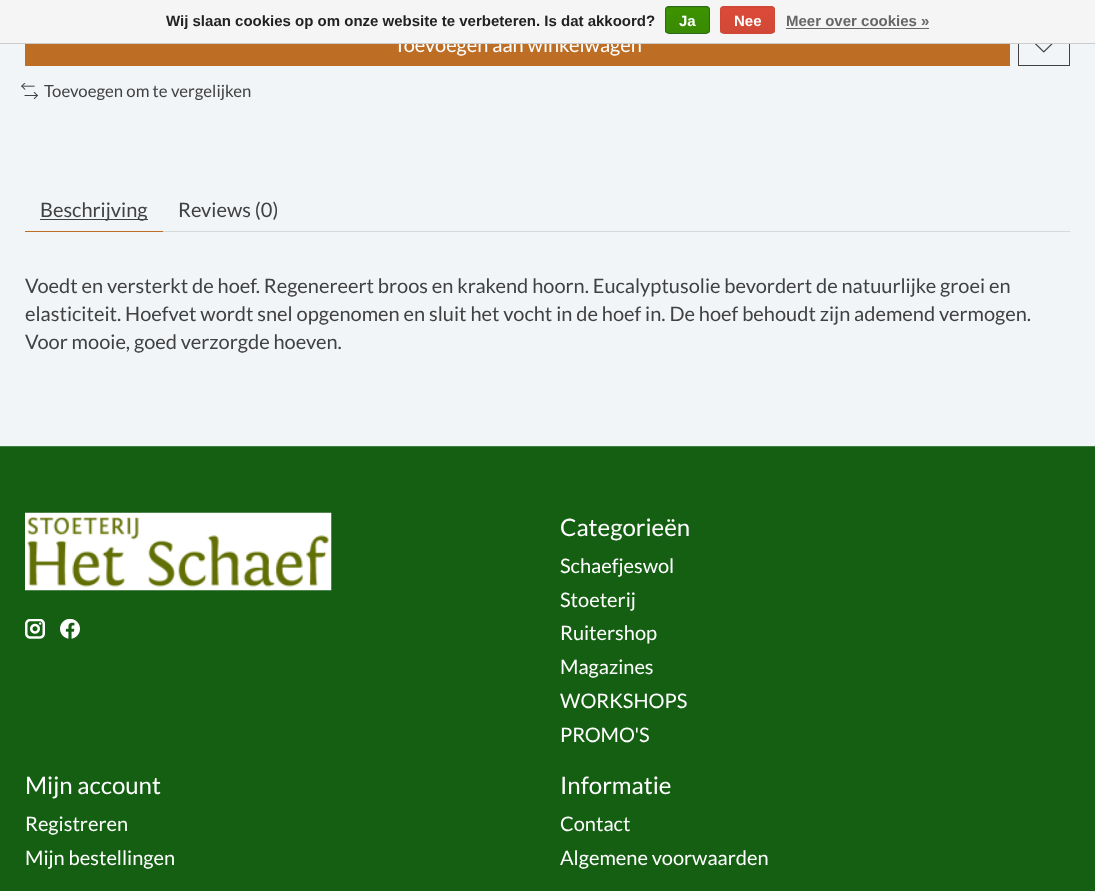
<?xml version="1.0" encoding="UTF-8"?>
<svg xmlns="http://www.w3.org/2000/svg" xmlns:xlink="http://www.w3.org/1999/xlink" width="1095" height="891">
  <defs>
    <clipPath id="clip1"><rect x="720" y="6" width="55" height="28" rx="4" /></clipPath>
    <linearGradient id="g1" gradientUnits="userSpaceOnUse" x1="748" y1="7.5" x2="748" y2="33"><stop offset="0" stop-color="#dc4a38" /><stop offset="1" stop-color="#d14836" /></linearGradient>
    <linearGradient id="g2" gradientUnits="userSpaceOnUse" x1="748" y1="-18" x2="748" y2="7.5"><stop offset="0" stop-color="#dc4a38" /><stop offset="1" stop-color="#d14836" /></linearGradient>
    <clipPath id="clip2"><rect x="665" y="6" width="45" height="28" rx="4" /></clipPath>
    <linearGradient id="g3" gradientUnits="userSpaceOnUse" x1="688" y1="7.5" x2="688" y2="33"><stop offset="0" stop-color="#3c9300" /><stop offset="1" stop-color="#398a00" /></linearGradient>
    <linearGradient id="g4" gradientUnits="userSpaceOnUse" x1="688" y1="-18" x2="688" y2="7.5"><stop offset="0" stop-color="#3c9300" /><stop offset="1" stop-color="#398a00" /></linearGradient>
  </defs>
  <rect width="100%" height="100%" fill="#f2f5f8" />
  <rect x="25" y="44" width="985" height="22" fill="#be6d25" />
  <rect x="1018.5" y="23.5" width="51" height="42" fill="none" stroke="#414141" />
  <image x="1035" y="44" width="18" height="9" xlink:href="image1.png" />
  <image x="21" y="83" width="17" height="17" xlink:href="image2.png" />
  <rect x="25" y="231" width="138" height="1" fill="#be6d25" />
  <rect x="40" y="219" width="108" height="1" fill="#414141" />
  <rect x="163" y="231" width="907" height="1" fill="#d7dadd" />
  <rect y="447" width="1095" height="444" fill="#155f13" />
  <rect y="446" width="1095" height="1" fill="#447f42" />
  <image x="25" y="512" width="307" height="79" xlink:href="image3.png" />
  <image x="25" y="619" width="20" height="20" xlink:href="image4.png" />
  <image x="60" y="619" width="20" height="20" xlink:href="image5.png" />
  <text x="394" y="52" style="font-family: Lato; font-size: 20px; fill: #ffffff">Toevoegen aan winkelwagen</text>
  <rect width="1095" height="43" fill="#f5f5f5" />
  <text x="786" y="26" style="font-family: Liberation Sans; font-size: 15px; font-weight: bold; fill: #666666">Meer over cookies »</text>
  <rect x="786" y="28" width="143" height="1" fill="#666666" />
  <g clip-path="url(#clip1)">
    <rect x="720" y="8" width="55" height="25" fill="url(#g1)" />
    <rect x="720" y="6" width="55" height="2" fill="url(#g2)" />
  </g>
  <rect x="720.5" y="6.5" width="54" height="27" rx="3.5" fill="none" stroke="#d14836" />
  <text x="734" y="26" style="font-family: Liberation Sans; font-size: 15px; font-weight: bold; fill: #ffffff">Nee</text>
  <g clip-path="url(#clip2)">
    <rect x="665" y="8" width="45" height="25" fill="url(#g3)" />
    <rect x="665" y="6" width="45" height="2" fill="url(#g4)" />
  </g>
  <rect x="665.5" y="6.5" width="44" height="27" rx="3.5" fill="none" stroke="#29691d" />
  <text x="679" y="26" style="font-family: Liberation Sans; font-size: 15px; font-weight: bold; fill: #ffffff">Ja</text>
  <text x="166" y="26" style="font-family: Liberation Sans; font-size: 15px; font-weight: bold; fill: #222222">Wij slaan cookies op om onze website te verbeteren. Is dat akkoord?</text>
  <rect y="43" width="1095" height="1" fill="#cccccc" />
  <text x="44" y="97" style="font-family: Lato; font-size: 16.75px; fill: #414141">Toevoegen om te vergelijken</text>
  <text x="40" y="217" style="font-family: Lato; font-size: 20px; fill: #414141">Beschrijving</text>
  <text x="178" y="217" style="font-family: Lato; font-size: 20px; fill: #414141">Reviews (0)</text>
  <text x="25" y="293" style="font-family: Lato; font-size: 20px; fill: #414141">Voedt en versterkt de hoef. Regenereert broos en krakend hoorn. Eucalyptusolie bevordert de natuurlijke groei en</text>
  <text x="25" y="321" style="font-family: Lato; font-size: 20px; fill: #414141">elasticiteit. Hoefvet wordt snel opgenomen en sluit het vocht in de hoef in. De hoef behoudt zijn ademend vermogen.</text>
  <text x="25" y="349" style="font-family: Lato; font-size: 20px; fill: #414141">Voor mooie, goed verzorgde hoeven.</text>
  <text x="560" y="536" style="font-family: Lato; font-size: 24px; fill: #ffffff">Categorieën</text>
  <text x="560" y="573" style="font-family: Lato; font-size: 20px; fill: #ffffff">Schaefjeswol</text>
  <text x="560" y="607" style="font-family: Lato; font-size: 20px; fill: #ffffff">Stoeterij</text>
  <text x="560" y="640" style="font-family: Lato; font-size: 20px; fill: #ffffff">Ruitershop</text>
  <text x="560" y="674" style="font-family: Lato; font-size: 20px; fill: #ffffff">Magazines</text>
  <text x="560" y="708" style="font-family: Lato; font-size: 20px; fill: #ffffff">WORKSHOPS</text>
  <text x="560" y="742" style="font-family: Lato; font-size: 20px; fill: #ffffff">PROMO'S</text>
  <text x="25" y="794" style="font-family: Lato; font-size: 24px; fill: #ffffff">Mijn account</text>
  <text x="25" y="831" style="font-family: Lato; font-size: 20px; fill: #ffffff">Registreren</text>
  <text x="25" y="865" style="font-family: Lato; font-size: 20px; fill: #ffffff">Mijn bestellingen</text>
  <text x="560" y="794" style="font-family: Lato; font-size: 24px; fill: #ffffff">Informatie</text>
  <text x="560" y="831" style="font-family: Lato; font-size: 20px; fill: #ffffff">Contact</text>
  <text x="560" y="865" style="font-family: Lato; font-size: 20px; fill: #ffffff">Algemene voorwaarden</text>
</svg>
